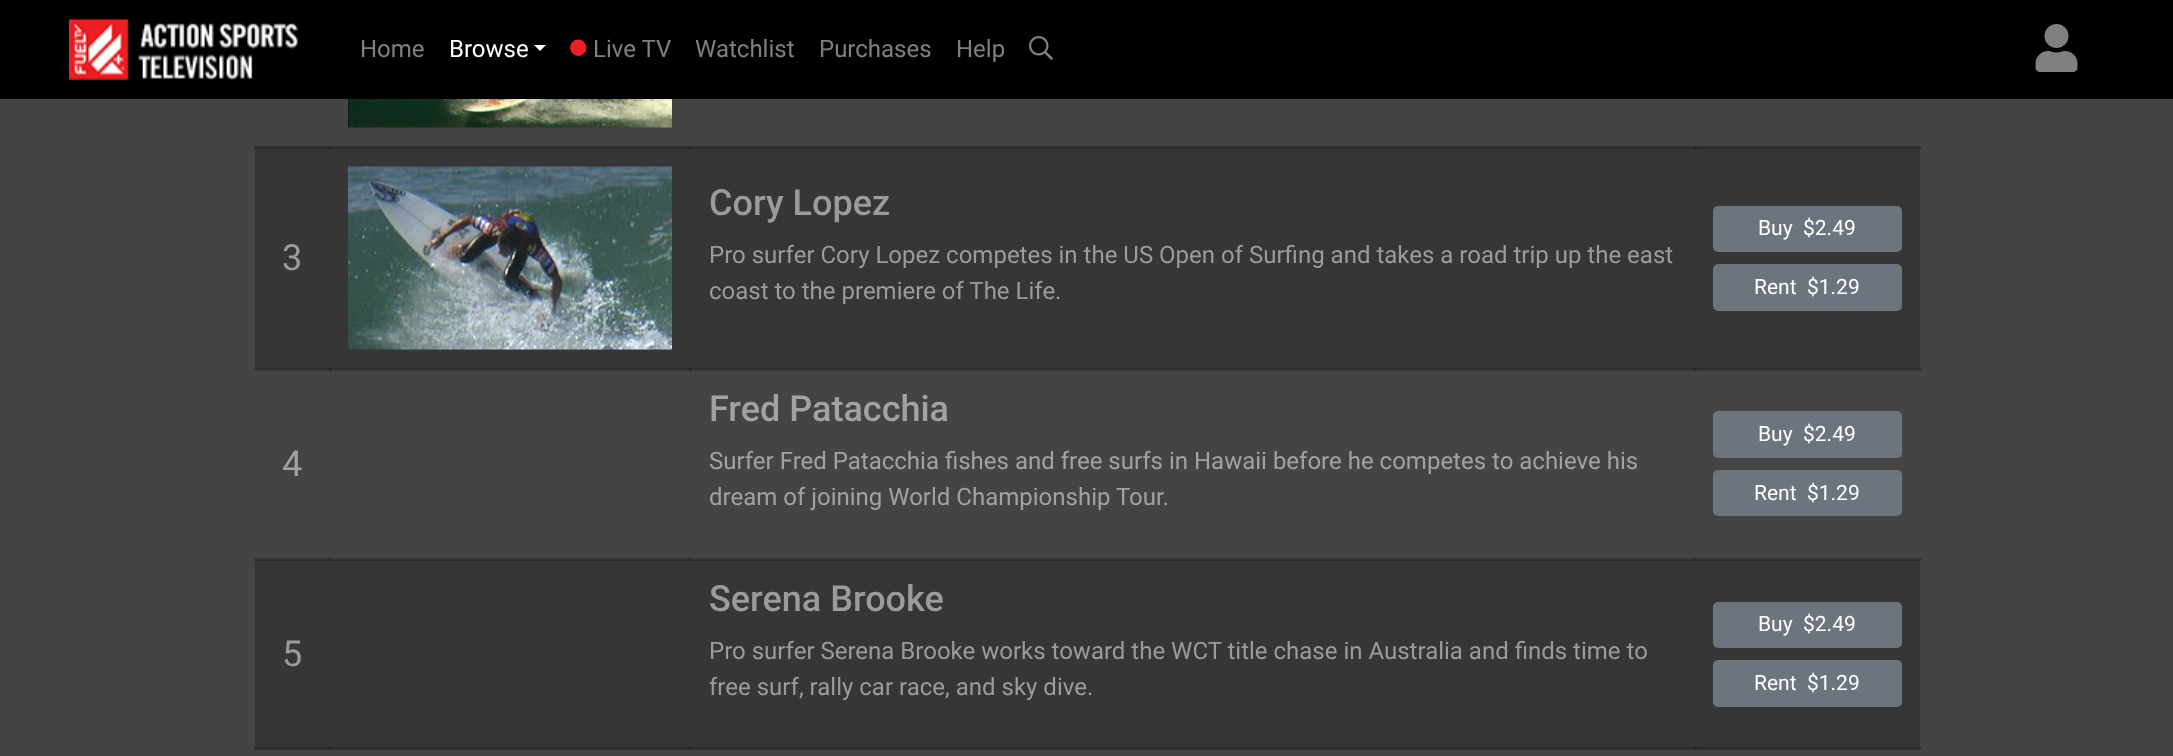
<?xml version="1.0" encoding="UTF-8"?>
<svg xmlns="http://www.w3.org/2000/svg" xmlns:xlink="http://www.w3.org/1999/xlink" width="2173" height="756">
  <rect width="100%" height="100%" fill="#444444" />
  <rect width="2173" height="99" fill="#000000" />
  <image x="69" y="19" width="229" height="61" xlink:href="image1.png" />
  <path d="M 534 45 h 12 l -6 6 z" fill="#ffffff" />
  <path d="M 572.5 42 c 7.5 -7.5 19 4 11.5 11.5 c -7.5 7.5 -19 -4 -11.5 -11.5 z" fill="#ed1f24" />
  <image x="1029" y="36" width="24" height="24" xlink:href="image2.png" />
  <image x="2035" y="24" width="43" height="48" xlink:href="image3.png" />
  <rect x="254" y="146" width="78" height="3" fill="#363636" />
  <rect x="329" y="146" width="1368" height="1" fill="#363636" />
  <rect x="329" y="146" width="3" height="1" fill="#2b2b2b" />
  <rect x="689" y="146" width="3" height="1" fill="#2b2b2b" />
  <rect x="1694" y="146" width="228" height="3" fill="#363636" />
  <rect x="1694" y="146" width="3" height="1" fill="#2b2b2b" />
  <rect x="254" y="368" width="78" height="3" fill="#363636" />
  <rect x="329" y="369" width="1368" height="2" fill="#363636" />
  <rect x="329" y="369" width="3" height="2" fill="#2b2b2b" />
  <rect x="689" y="369" width="3" height="2" fill="#2b2b2b" />
  <rect x="1694" y="368" width="228" height="3" fill="#363636" />
  <rect x="1694" y="369" width="3" height="2" fill="#2b2b2b" />
  <rect x="254" y="558" width="78" height="3" fill="#363636" />
  <rect x="329" y="558" width="1368" height="2" fill="#363636" />
  <rect x="329" y="558" width="3" height="2" fill="#2b2b2b" />
  <rect x="689" y="558" width="3" height="2" fill="#2b2b2b" />
  <rect x="1694" y="558" width="228" height="3" fill="#363636" />
  <rect x="1694" y="558" width="3" height="2" fill="#2b2b2b" />
  <rect x="254" y="747" width="78" height="3" fill="#363636" />
  <rect x="329" y="749" width="1368" height="1" fill="#363636" />
  <rect x="329" y="749" width="3" height="1" fill="#2b2b2b" />
  <rect x="689" y="749" width="3" height="1" fill="#2b2b2b" />
  <rect x="1694" y="747" width="228" height="3" fill="#363636" />
  <rect x="1694" y="749" width="3" height="1" fill="#2b2b2b" />
  <image x="348" y="99" width="324" height="29" xlink:href="image4.png" />
  <rect x="255" y="149" width="1665" height="219" fill="#363636" />
  <rect x="255" y="147" width="1665" height="2" fill="#2b2b2b" />
  <rect x="329" y="147" width="3" height="2" fill="#222222" />
  <rect x="689" y="147" width="3" height="2" fill="#222222" />
  <rect x="1694" y="147" width="3" height="2" fill="#222222" />
  <rect x="255" y="368" width="1665" height="1" fill="#2b2b2b" />
  <rect x="329" y="368" width="3" height="1" fill="#222222" />
  <rect x="689" y="368" width="3" height="1" fill="#222222" />
  <rect x="1694" y="368" width="3" height="1" fill="#222222" />
  <image x="348" y="166" width="324" height="184" xlink:href="image5.png" />
  <rect x="1714" y="207" width="187" height="44" rx="4" fill="#6c757d" stroke="#6c757d" stroke-width="2" />
  <rect x="1714" y="265" width="187" height="45" rx="4" fill="#6c757d" stroke="#6c757d" stroke-width="2" />
  <rect x="1714" y="412" width="187" height="45" rx="4" fill="#6c757d" stroke="#6c757d" stroke-width="2" />
  <rect x="1714" y="471" width="187" height="44" rx="4" fill="#6c757d" stroke="#6c757d" stroke-width="2" />
  <rect x="255" y="561" width="1665" height="186" fill="#363636" />
  <rect x="255" y="560" width="1665" height="1" fill="#2b2b2b" />
  <rect x="329" y="560" width="3" height="1" fill="#222222" />
  <rect x="689" y="560" width="3" height="1" fill="#222222" />
  <rect x="1694" y="560" width="3" height="1" fill="#222222" />
  <rect x="255" y="747" width="1665" height="2" fill="#2b2b2b" />
  <rect x="329" y="747" width="3" height="2" fill="#222222" />
  <rect x="689" y="747" width="3" height="2" fill="#222222" />
  <rect x="1694" y="747" width="3" height="2" fill="#222222" />
  <rect x="1714" y="603" width="187" height="44" rx="4" fill="#6c757d" stroke="#6c757d" stroke-width="2" />
  <rect x="1714" y="661" width="187" height="45" rx="4" fill="#6c757d" stroke="#6c757d" stroke-width="2" />
  <text x="360" y="57" style="font-family: Roboto; font-size: 24px; fill: #808080">Home</text>
  <text x="449" y="57" style="font-family: Roboto; font-size: 24px; fill: #ffffff">Browse</text>
  <text x="593" y="57" style="font-family: Roboto; font-size: 24px; fill: #808080">Live TV</text>
  <text x="695" y="57" style="font-family: Roboto; font-size: 24px; fill: #808080">Watchlist</text>
  <text x="819" y="57" style="font-family: Roboto; font-size: 24px; fill: #808080">Purchases</text>
  <text x="956" y="57" style="font-family: Roboto; font-size: 24px; fill: #808080">Help</text>
  <text x="282" y="270" style="font-family: Roboto; font-size: 36px; fill: #9b9b9b">3</text>
  <text x="709" y="215" style="font-family: Roboto; font-size: 36px; font-weight: 500; fill: #9b9b9b">Cory Lopez</text>
  <text x="709" y="263" style="font-family: Roboto; font-size: 24px; fill: #9b9b9b">Pro surfer Cory Lopez competes in the US Open of Surfing and takes a road trip up the east</text>
  <text x="709" y="299" style="font-family: Roboto; font-size: 24px; fill: #9b9b9b">coast to the premiere of The Life.</text>
  <text x="1758" y="235" style="font-family: Roboto; font-size: 21px; fill: #ffffff" xml:space="preserve">Buy  $2.49</text>
  <text x="1754" y="294" style="font-family: Roboto; font-size: 21px; fill: #ffffff" xml:space="preserve">Rent  $1.29</text>
  <text x="282" y="476" style="font-family: Roboto; font-size: 36px; fill: #a2a2a2">4</text>
  <text x="709" y="421" style="font-family: Roboto; font-size: 36px; font-weight: 500; fill: #a2a2a2">Fred Patacchia</text>
  <text x="709" y="469" style="font-family: Roboto; font-size: 24px; fill: #a2a2a2">Surfer Fred Patacchia fishes and free surfs in Hawaii before he competes to achieve his</text>
  <text x="709" y="505" style="font-family: Roboto; font-size: 24px; fill: #a2a2a2">dream of joining World Championship Tour.</text>
  <text x="1758" y="441" style="font-family: Roboto; font-size: 21px; fill: #ffffff" xml:space="preserve">Buy  $2.49</text>
  <text x="1754" y="500" style="font-family: Roboto; font-size: 21px; fill: #ffffff" xml:space="preserve">Rent  $1.29</text>
  <text x="282" y="666" style="font-family: Roboto; font-size: 36px; fill: #9b9b9b">5</text>
  <text x="709" y="611" style="font-family: Roboto; font-size: 36px; font-weight: 500; fill: #9b9b9b">Serena Brooke</text>
  <text x="709" y="659" style="font-family: Roboto; font-size: 24px; fill: #9b9b9b">Pro surfer Serena Brooke works toward the WCT title chase in Australia and finds time to</text>
  <text x="709" y="695" style="font-family: Roboto; font-size: 24px; fill: #9b9b9b">free surf, rally car race, and sky dive.</text>
  <text x="1758" y="631" style="font-family: Roboto; font-size: 21px; fill: #ffffff" xml:space="preserve">Buy  $2.49</text>
  <text x="1754" y="690" style="font-family: Roboto; font-size: 21px; fill: #ffffff" xml:space="preserve">Rent  $1.29</text>
</svg>
